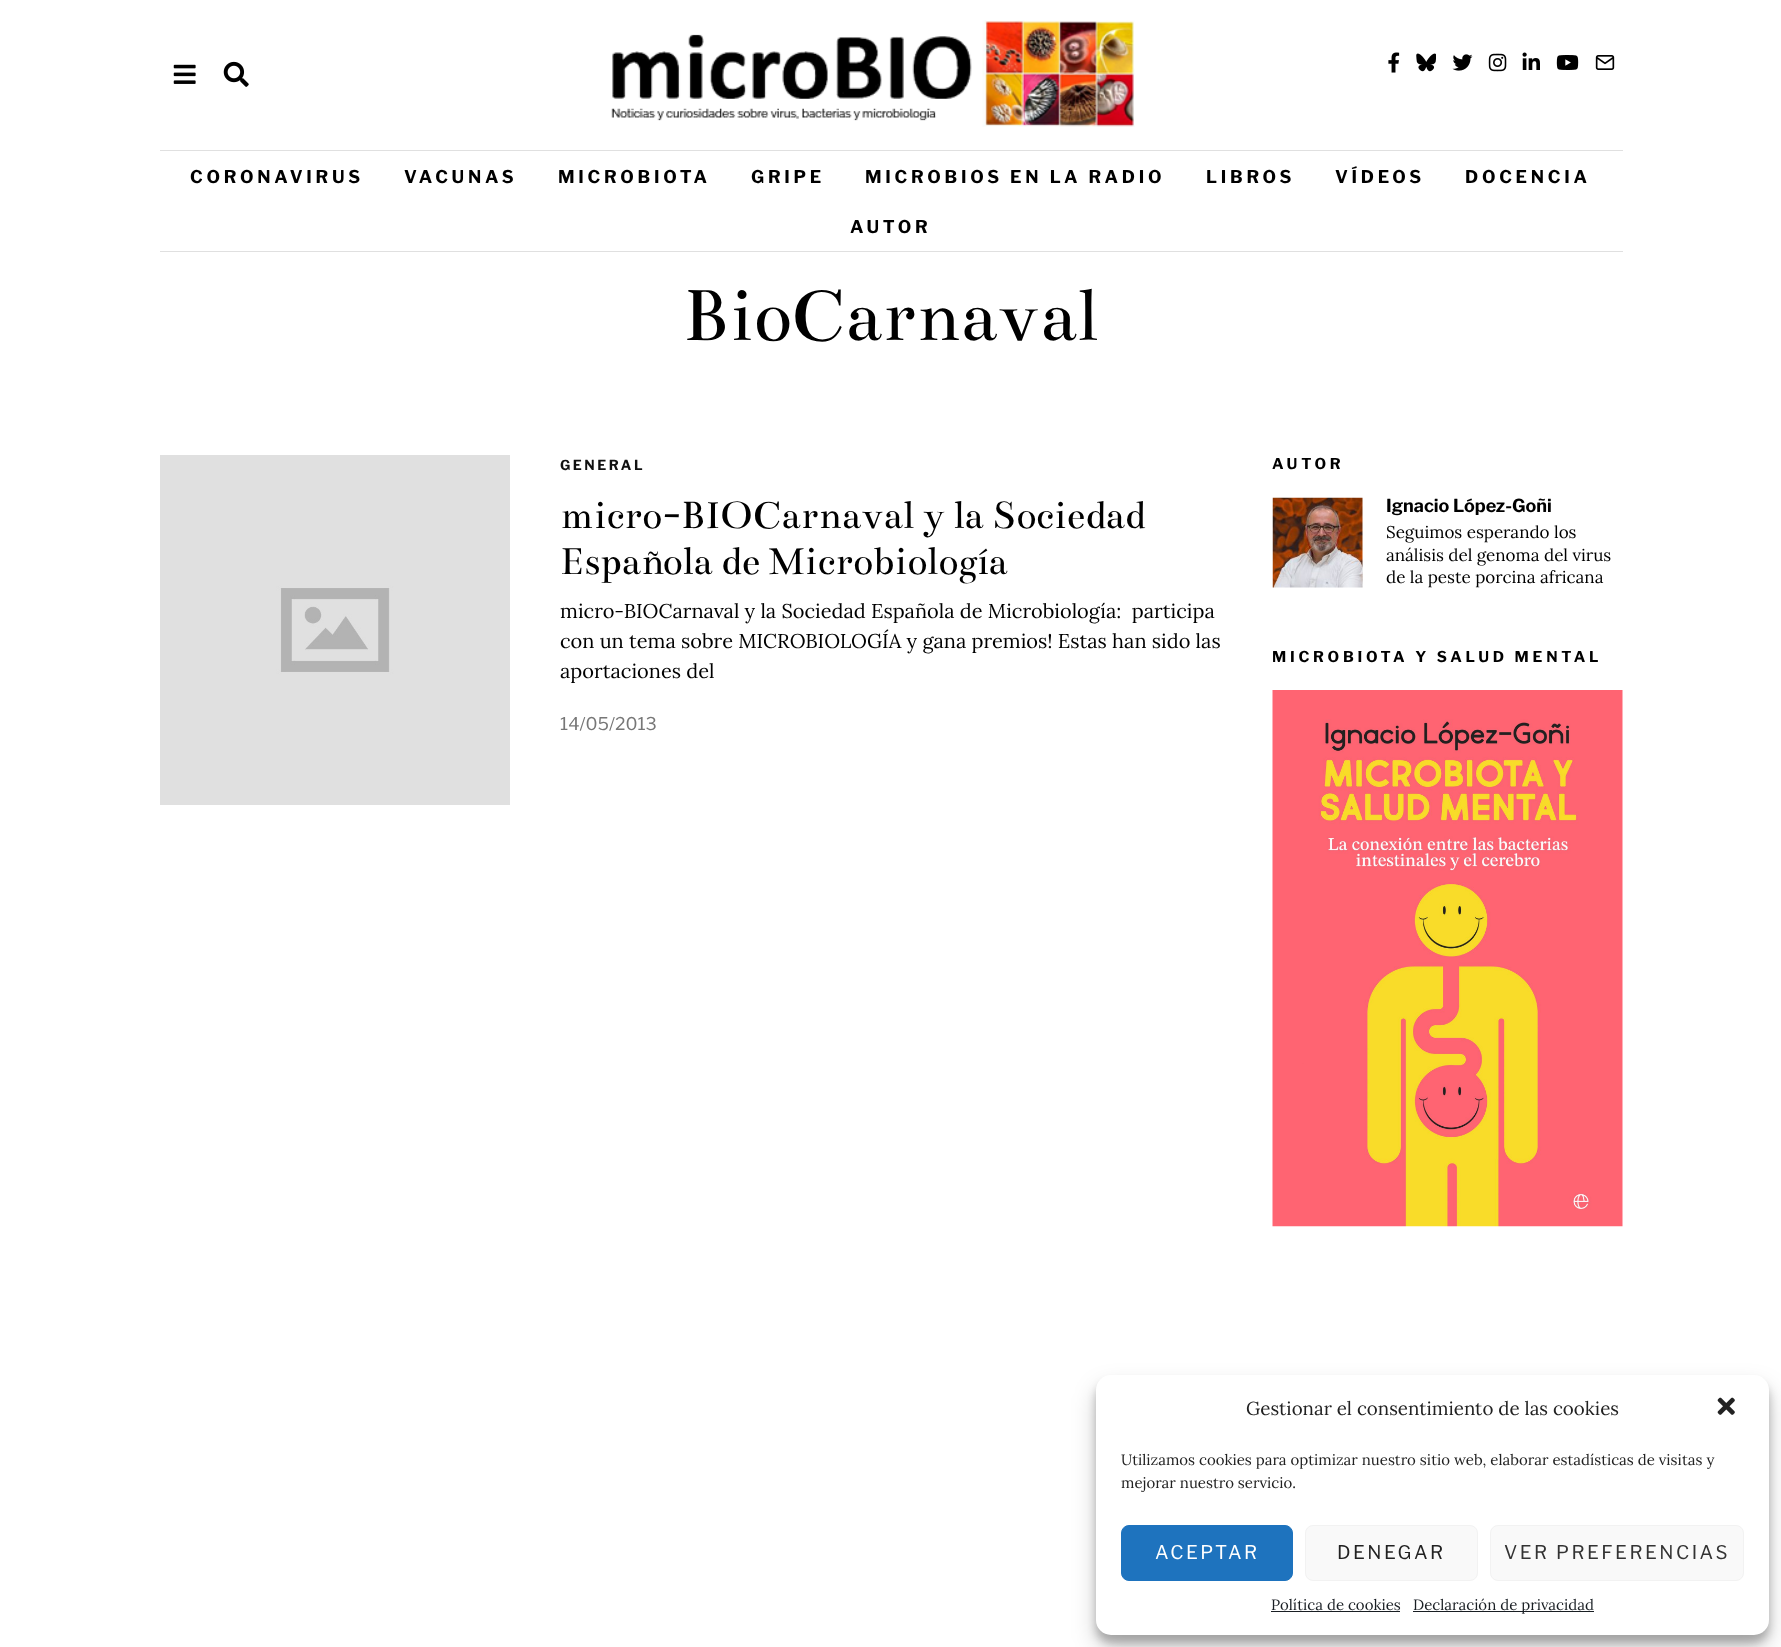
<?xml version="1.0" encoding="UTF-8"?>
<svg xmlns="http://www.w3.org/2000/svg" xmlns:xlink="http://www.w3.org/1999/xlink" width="1781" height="1647">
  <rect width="100%" height="100%" fill="#ffffff" />
  <image x="173" y="64" width="23" height="20" xlink:href="image1.png" />
  <image x="223" y="61" width="26" height="26" xlink:href="image2.png" />
  <image x="611" y="20" width="524" height="107" xlink:href="image3.png" />
  <image x="1388" y="52" width="12" height="21" xlink:href="image4.png" />
  <image x="1416" y="53" width="20" height="19" xlink:href="image5.png" />
  <image x="1452" y="54" width="21" height="17" xlink:href="image6.png" />
  <image x="1488" y="53" width="19" height="19" xlink:href="image7.png" />
  <image x="1522" y="52" width="18" height="18" xlink:href="image8.png" />
  <image x="1556" y="55" width="23" height="15" xlink:href="image9.png" />
  <image x="1595" y="55" width="20" height="15" xlink:href="image10.png" />
  <rect x="160" y="150" width="1463" height="1" fill="#e0e0e0" />
  <rect x="160" y="251" width="1463" height="1" fill="#e0e0e0" />
  <image x="160" y="455" width="350" height="350" xlink:href="image11.png" />
  <image x="1272" y="497" width="91" height="91" xlink:href="image12.png" />
  <image x="1272" y="690" width="351" height="537" xlink:href="image13.png" />
  <rect x="1096" y="1383" width="673" height="260" rx="15" fill="#000000" fill-opacity="0.23" filter="blur(4px)" />
  <rect x="1096" y="1388" width="673" height="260" rx="15" fill="#000000" fill-opacity="0.19" filter="blur(12.5px)" />
  <rect x="1096" y="1375" width="673" height="260" rx="15" fill="#ffffff" />
  <image x="1717" y="1397" width="18" height="18" xlink:href="image14.png" />
  <rect x="1121.5" y="1525.5" width="171" height="55" rx="7.5" fill="#1e73be" stroke="#1e73be" />
  <rect x="1305.5" y="1525.5" width="172" height="55" rx="7.5" fill="#f9f9f9" stroke="#f2f2f2" />
  <rect x="1490.5" y="1525.5" width="253" height="55" rx="7.5" fill="#f9f9f9" stroke="#f2f2f2" />
  <rect x="1271" y="1611" width="129" height="1" fill="#191e23" />
  <rect x="1413" y="1611" width="181" height="1" fill="#191e23" />
  <text x="190" y="183" style="font-family: Libre Franklin; font-size: 17.5px; font-weight: bold; letter-spacing: 3.75px; fill: #000000">CORONAVIRUS</text>
  <text x="404" y="183" style="font-family: Libre Franklin; font-size: 17.5px; font-weight: bold; letter-spacing: 3.75px; fill: #000000">VACUNAS</text>
  <text x="558" y="183" style="font-family: Libre Franklin; font-size: 17.5px; font-weight: bold; letter-spacing: 3.75px; fill: #000000">MICROBIOTA</text>
  <text x="751" y="183" style="font-family: Libre Franklin; font-size: 17.5px; font-weight: bold; letter-spacing: 3.75px; fill: #000000">GRIPE</text>
  <text x="865" y="183" style="font-family: Libre Franklin; font-size: 17.5px; font-weight: bold; letter-spacing: 3.75px; fill: #000000">MICROBIOS EN LA RADIO</text>
  <text x="1206" y="183" style="font-family: Libre Franklin; font-size: 17.5px; font-weight: bold; letter-spacing: 3.75px; fill: #000000">LIBROS</text>
  <text x="1335" y="183" style="font-family: Libre Franklin; font-size: 17.5px; font-weight: bold; letter-spacing: 3.75px; fill: #000000">VÍDEOS</text>
  <text x="1465" y="183" style="font-family: Libre Franklin; font-size: 17.5px; font-weight: bold; letter-spacing: 3.75px; fill: #000000">DOCENCIA</text>
  <text x="850" y="233" style="font-family: Libre Franklin; font-size: 17.5px; font-weight: bold; letter-spacing: 3.75px; fill: #000000">AUTOR</text>
  <text x="683" y="340" style="font-family: Bentham; font-size: 80px; fill: #000000">BioCarnaval</text>
  <text x="560" y="470" style="font-family: Libre Franklin; font-size: 13.75px; font-weight: bold; letter-spacing: 2.5px; fill: #111111">GENERAL</text>
  <text x="560" y="528" style="font-family: Bentham; font-size: 42px; fill: #000000">micro-BIOCarnaval y la Sociedad</text>
  <text x="560" y="574" style="font-family: Bentham; font-size: 42px; fill: #000000">Española de Microbiología</text>
  <text x="560" y="618" style="font-family: Lora; font-size: 20px; fill: #000000" xml:space="preserve">micro-BIOCarnaval y la Sociedad Española de Microbiología:  participa</text>
  <text x="560" y="648" style="font-family: Lora; font-size: 20px; fill: #000000">con un tema sobre MICROBIOLOGÍA y gana premios! Estas han sido las</text>
  <text x="560" y="678" style="font-family: Lora; font-size: 20px; fill: #000000">aportaciones del</text>
  <text x="560" y="730" style="font-family: Libre Franklin; font-size: 17.5px; fill: #777777">14/05/2013</text>
  <text x="1272" y="469" style="font-family: Libre Franklin; font-size: 15px; font-weight: bold; letter-spacing: 3.75px; fill: #000000">AUTOR</text>
  <text x="1386" y="512" style="font-family: Libre Franklin; font-size: 18px; font-weight: bold; fill: #000000">Ignacio López-Goñi</text>
  <text x="1386" y="538" style="font-family: Lora; font-size: 17px; fill: #000000">Seguimos esperando los</text>
  <text x="1386" y="561" style="font-family: Lora; font-size: 17px; fill: #000000">análisis del genoma del virus</text>
  <text x="1386" y="583" style="font-family: Lora; font-size: 17px; fill: #000000">de la peste porcina africana</text>
  <text x="1272" y="662" style="font-family: Libre Franklin; font-size: 15px; font-weight: bold; letter-spacing: 3.75px; fill: #000000">MICROBIOTA Y SALUD MENTAL</text>
  <text x="1246" y="1415" style="font-family: Lora; font-size: 18.75px; fill: #222222">Gestionar el consentimiento de las cookies</text>
  <text x="1121" y="1465" style="font-family: Lora; font-size: 15px; fill: #222222">Utilizamos cookies para optimizar nuestro sitio web, elaborar estadísticas de visitas y</text>
  <text x="1121" y="1488" style="font-family: Lora; font-size: 15px; fill: #222222">mejorar nuestro servicio.</text>
  <text x="1155" y="1559" style="font-family: Libre Franklin; font-size: 18.75px; letter-spacing: 2.5px; fill: #ffffff">ACEPTAR</text>
  <text x="1337" y="1559" style="font-family: Libre Franklin; font-size: 18.75px; letter-spacing: 2.5px; fill: #222222">DENEGAR</text>
  <text x="1504" y="1559" style="font-family: Libre Franklin; font-size: 18.75px; letter-spacing: 2.5px; fill: #333333">VER PREFERENCIAS</text>
  <text x="1271" y="1610" style="font-family: Lora; font-size: 15px; fill: #191e23">Política de cookies</text>
  <text x="1413" y="1610" style="font-family: Lora; font-size: 15px; fill: #191e23">Declaración de privacidad</text>
</svg>
